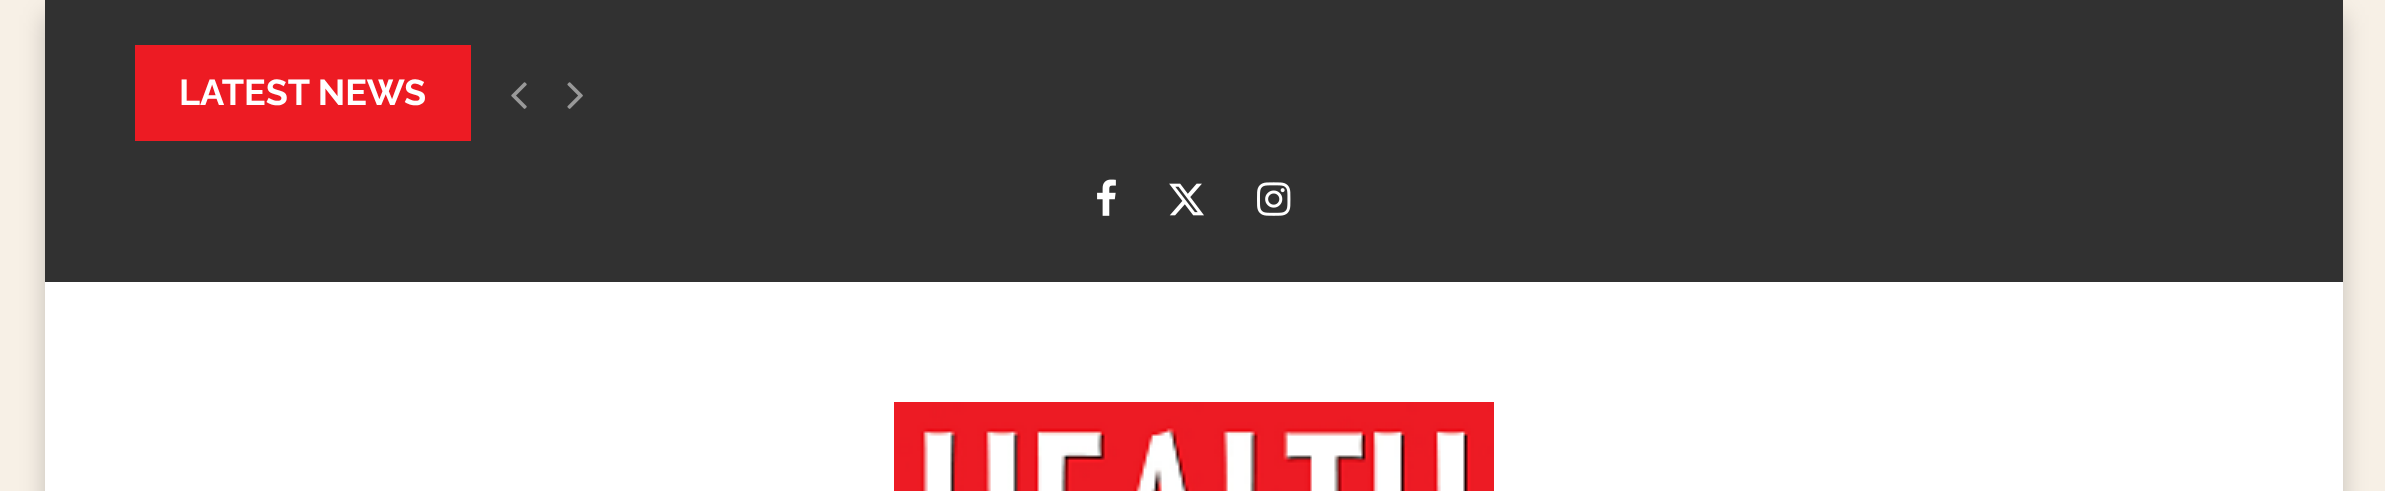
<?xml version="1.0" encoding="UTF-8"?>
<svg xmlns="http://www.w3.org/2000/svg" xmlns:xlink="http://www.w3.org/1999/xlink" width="2385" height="491">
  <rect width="100%" height="100%" fill="#f7f0e6" />
  <rect x="45" y="15" width="2298" height="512" fill="#000000" fill-opacity="0.2" filter="blur(12px)" />
  <rect x="45" y="282" width="2298" height="209" fill="#ffffff" />
  <rect x="45" width="2298" height="282" fill="#313131" />
  <rect x="135" y="45" width="336" height="96" fill="#ed1b23" />
  <image x="511" y="82" width="16" height="27" xlink:href="image1.png" />
  <image x="567" y="82" width="16" height="27" xlink:href="image2.png" />
  <image x="1097" y="179" width="19" height="37" xlink:href="image3.png" />
  <image x="1169" y="183" width="35" height="33" xlink:href="image4.png" />
  <image x="1257" y="182" width="34" height="34" xlink:href="image5.png" />
  <image x="894" y="402" width="600" height="89" xlink:href="image6.png" />
  <text x="179" y="105" style="font-family: Raleway; font-size: 36px; font-weight: bold; fill: #ffffff">LATEST NEWS</text>
</svg>
